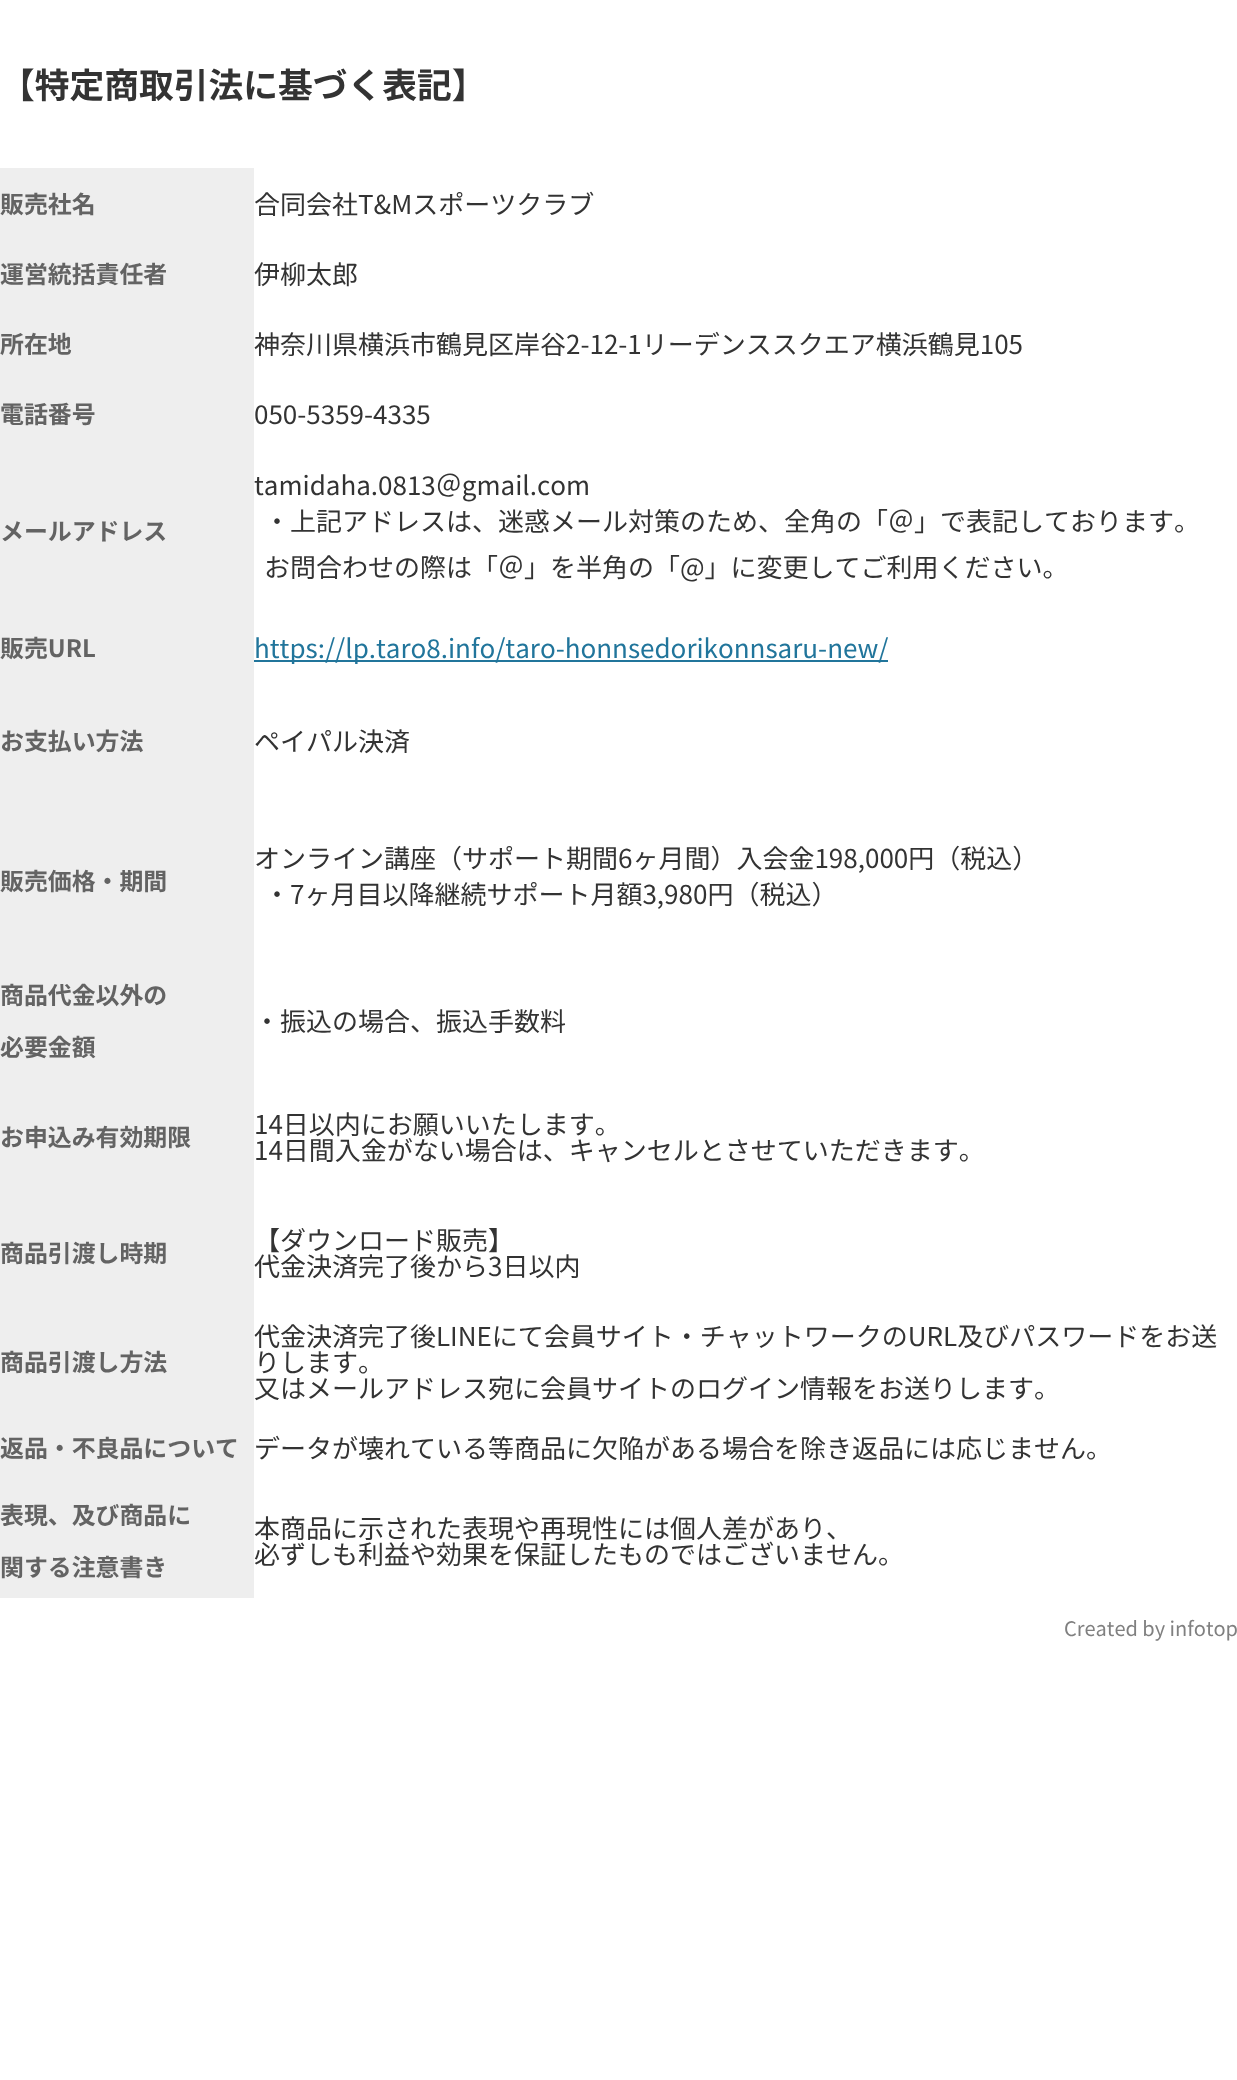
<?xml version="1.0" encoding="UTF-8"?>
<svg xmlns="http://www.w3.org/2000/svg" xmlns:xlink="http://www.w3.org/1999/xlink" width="1237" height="2080">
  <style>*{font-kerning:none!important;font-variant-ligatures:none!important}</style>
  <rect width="100%" height="100%" fill="#ffffff" />
  <rect y="168" width="254" height="1430" fill="#eeeeee" />
  <rect x="254" y="660" width="634" height="2" fill="#21759b" />
  <text x="0" y="98" style="font-family: Noto Sans JP; font-size: 34.75px; font-weight: bold; fill: #333333">【特定商取引法に基づく表記】</text>
  <text x="0" y="213" style="font-family: Noto Sans JP; font-size: 23.9px; font-weight: bold; fill: #636363">販売社名</text>
  <text x="254" y="214" style="font-family: Noto Sans JP; font-size: 26px; fill: #333333">合同会社T&amp;Mスポーツクラブ</text>
  <text x="0" y="283" style="font-family: Noto Sans JP; font-size: 23.9px; font-weight: bold; fill: #636363">運営統括責任者</text>
  <text x="254" y="284" style="font-family: Noto Sans JP; font-size: 26px; fill: #333333">伊柳太郎</text>
  <text x="0" y="353" style="font-family: Noto Sans JP; font-size: 23.9px; font-weight: bold; fill: #636363">所在地</text>
  <text x="254" y="354" style="font-family: Noto Sans JP; font-size: 26px; fill: #333333">神奈川県横浜市鶴見区岸谷2-12-1リーデンススクエア横浜鶴見105</text>
  <text x="0" y="423" style="font-family: Noto Sans JP; font-size: 23.9px; font-weight: bold; fill: #636363">電話番号</text>
  <text x="254" y="424" style="font-family: Noto Sans JP; font-size: 26px; fill: #333333">050-5359-4335</text>
  <text x="0" y="540" style="font-family: Noto Sans JP; font-size: 23.9px; font-weight: bold; fill: #636363">メールアドレス</text>
  <text x="254" y="495" style="font-family: Noto Sans JP; font-size: 26px; fill: #333333">tamidaha.0813＠gmail.com</text>
  <text x="264" y="531" style="font-family: Noto Sans JP; font-size: 26px; fill: #333333">・上記アドレスは、迷惑メール対策のため、全角の「＠」で表記しております。</text>
  <text x="264" y="577" style="font-family: Noto Sans JP; font-size: 26px; fill: #333333">お問合わせの際は「＠」を半角の「@」に変更してご利用ください。</text>
  <text x="0" y="657" style="font-family: Noto Sans JP; font-size: 23.9px; font-weight: bold; fill: #636363">販売URL</text>
  <text x="254" y="658" style="font-family: Noto Sans JP; font-size: 26px; fill: #21759b">https://lp.taro8.info/taro-honnsedorikonnsaru-new/</text>
  <text x="0" y="750" style="font-family: Noto Sans JP; font-size: 23.9px; font-weight: bold; fill: #636363">お支払い方法</text>
  <text x="254" y="751" style="font-family: Noto Sans JP; font-size: 26px; fill: #333333">ペイパル決済</text>
  <text x="0" y="890" style="font-family: Noto Sans JP; font-size: 23.9px; font-weight: bold; fill: #636363">販売価格・期間</text>
  <text x="254" y="868" style="font-family: Noto Sans JP; font-size: 26px; fill: #333333">オンライン講座（サポート期間6ヶ月間）入会金198,000円（税込）</text>
  <text x="264" y="904" style="font-family: Noto Sans JP; font-size: 26px; fill: #333333">・7ヶ月目以降継続サポート月額3,980円（税込）</text>
  <text x="0" y="1004" style="font-family: Noto Sans JP; font-size: 23.9px; font-weight: bold; fill: #636363">商品代金以外の</text>
  <text x="0" y="1056" style="font-family: Noto Sans JP; font-size: 23.9px; font-weight: bold; fill: #636363">必要金額</text>
  <text x="254" y="1031" style="font-family: Noto Sans JP; font-size: 26px; fill: #333333">・振込の場合、振込手数料</text>
  <text x="0" y="1146" style="font-family: Noto Sans JP; font-size: 23.9px; font-weight: bold; fill: #636363">お申込み有効期限</text>
  <text x="254" y="1134" style="font-family: Noto Sans JP; font-size: 26px; fill: #333333">14日以内にお願いいたします。</text>
  <text x="254" y="1160" style="font-family: Noto Sans JP; font-size: 26px; fill: #333333">14日間入金がない場合は、キャンセルとさせていただきます。</text>
  <text x="0" y="1262" style="font-family: Noto Sans JP; font-size: 23.9px; font-weight: bold; fill: #636363">商品引渡し時期</text>
  <text x="254" y="1250" style="font-family: Noto Sans JP; font-size: 26px; fill: #333333">【ダウンロード販売】</text>
  <text x="254" y="1276" style="font-family: Noto Sans JP; font-size: 26px; fill: #333333">代金決済完了後から3日以内</text>
  <text x="0" y="1371" style="font-family: Noto Sans JP; font-size: 23.9px; font-weight: bold; fill: #636363">商品引渡し方法</text>
  <text x="254" y="1346" style="font-family: Noto Sans JP; font-size: 26px; fill: #333333">代金決済完了後LINEにて会員サイト・チャットワークのURL及びパスワードをお送</text>
  <text x="254" y="1372" style="font-family: Noto Sans JP; font-size: 26px; fill: #333333">りします。</text>
  <text x="254" y="1398" style="font-family: Noto Sans JP; font-size: 26px; fill: #333333">又はメールアドレス宛に会員サイトのログイン情報をお送りします。</text>
  <text x="0" y="1457" style="font-family: Noto Sans JP; font-size: 23.9px; font-weight: bold; fill: #636363">返品・不良品について</text>
  <text x="254" y="1458" style="font-family: Noto Sans JP; font-size: 26px; fill: #333333">データが壊れている等商品に欠陥がある場合を除き返品には応じません。</text>
  <text x="0" y="1524" style="font-family: Noto Sans JP; font-size: 23.9px; font-weight: bold; fill: #636363">表現、及び商品に</text>
  <text x="0" y="1576" style="font-family: Noto Sans JP; font-size: 23.9px; font-weight: bold; fill: #636363">関する注意書き</text>
  <text x="254" y="1538" style="font-family: Noto Sans JP; font-size: 26px; fill: #333333">本商品に示された表現や再現性には個人差があり、</text>
  <text x="254" y="1564" style="font-family: Noto Sans JP; font-size: 26px; fill: #333333">必ずしも利益や効果を保証したものではございません。</text>
  <text x="1064" y="1636" style="font-family: Noto Sans JP; font-size: 20px; fill: #808080">Created by infotop</text>
</svg>
